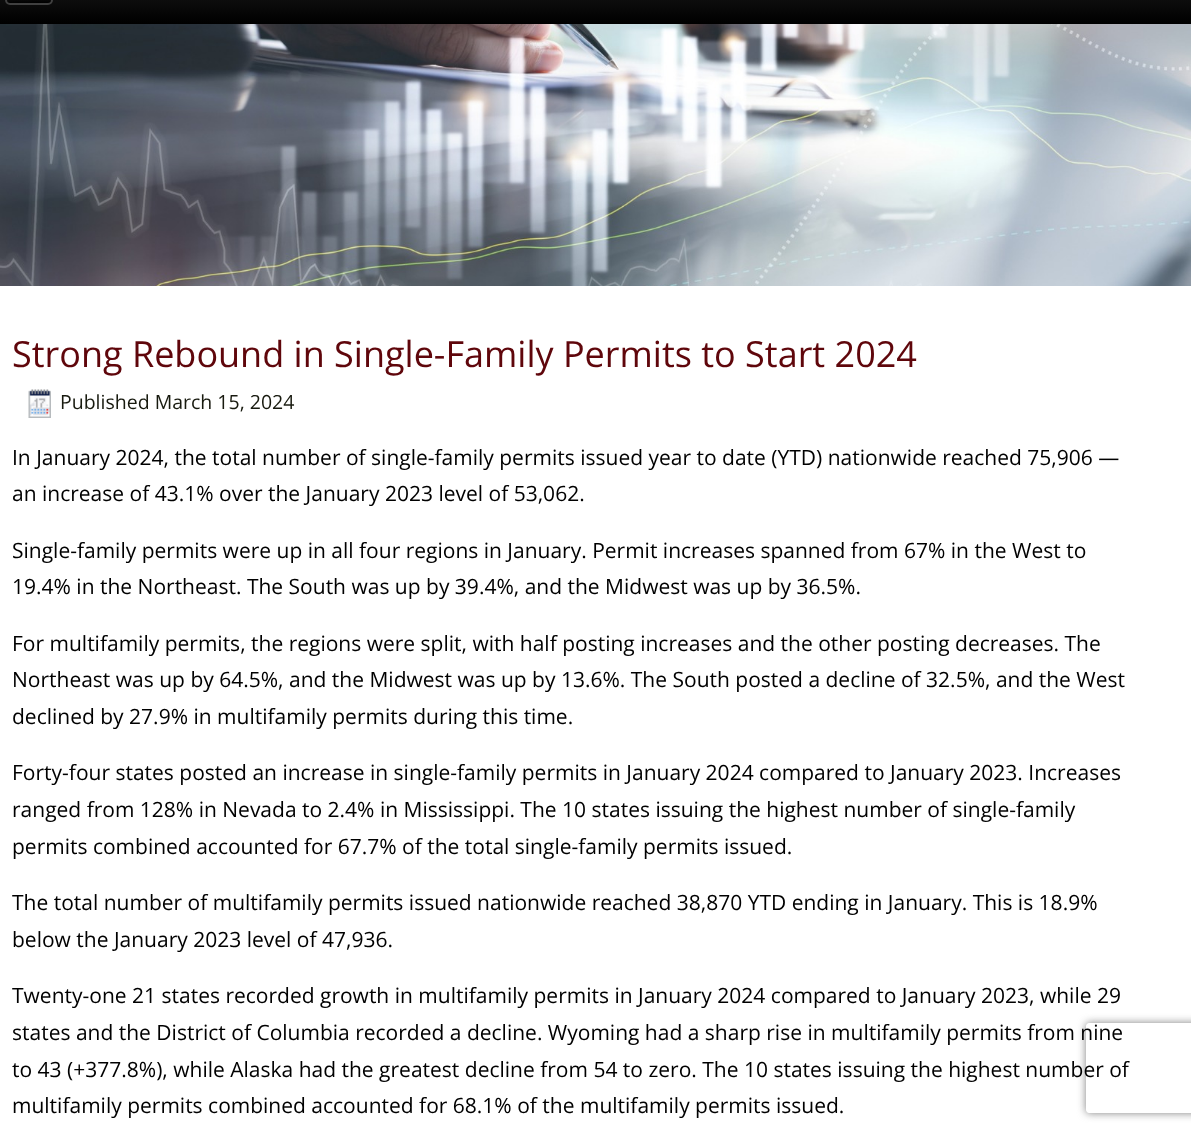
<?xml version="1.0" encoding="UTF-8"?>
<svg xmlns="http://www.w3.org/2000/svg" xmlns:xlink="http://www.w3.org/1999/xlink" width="1191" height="1133">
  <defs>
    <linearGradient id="g1" gradientUnits="userSpaceOnUse" x1="596" y1="24" x2="596" y2="-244"><stop offset="0" stop-color="#000000" /><stop offset="0.03" stop-color="#040404" /><stop offset="0.26" stop-color="#262626" /></linearGradient>
    <clipPath id="clip1"><rect x="5" y="-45" width="48" height="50" rx="5" /></clipPath>
    <linearGradient id="g2" gradientUnits="userSpaceOnUse" x1="28" y1="-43" x2="29" y2="3"><stop offset="0" stop-color="#707070" /><stop offset="1" stop-color="#000000" /></linearGradient>
    <clipPath id="clip2"><path d="M 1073 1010 h 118 v 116 h -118 z m 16 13 h 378 c 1.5 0 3 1.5 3 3 v 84 c 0 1.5 -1.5 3 -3 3 h -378 c -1.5 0 -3 -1.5 -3 -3 v -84 c 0 -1.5 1.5 -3 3 -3 z" clip-rule="evenodd" /></clipPath>
  </defs>
  <rect width="100%" height="100%" fill="#ffffff" />
  <rect width="1191" height="24" fill="url(#g1)" />
  <g clip-path="url(#clip1)">
    <rect x="5" width="48" height="3" fill="url(#g2)" />
  </g>
  <rect x="6" y="-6" width="46" height="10" rx="4" fill="none" stroke="#404040" stroke-width="2" />
  <image x="0" y="24" width="1191" height="262" xlink:href="image1.png" />
  <image x="28" y="389" width="23" height="29" xlink:href="image2.png" />
  <g clip-path="url(#clip2)">
    <rect x="1086" y="1023" width="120" height="90" rx="3" fill="#808080" filter="blur(4px)" />
  </g>
  <text x="12" y="367" style="font-family: Open Sans; font-size: 36px; fill: #5f060b">Strong Rebound in Single-Family Permits to Start 2024</text>
  <text x="60" y="409" style="font-family: Open Sans; font-size: 19.5px; fill: #181a0f">Published March 15, 2024</text>
  <text x="12" y="465" style="font-family: Open Sans; font-size: 21px; fill: #000000">In January 2024, the total number of single-family permits issued year to date (YTD) nationwide reached 75,906 —</text>
  <text x="12" y="501" style="font-family: Open Sans; font-size: 21px; fill: #000000">an increase of 43.1% over the January 2023 level of 53,062.</text>
  <text x="12" y="558" style="font-family: Open Sans; font-size: 21px; fill: #000000">Single-family permits were up in all four regions in January. Permit increases spanned from 67% in the West to</text>
  <text x="12" y="594" style="font-family: Open Sans; font-size: 21px; fill: #000000">19.4% in the Northeast. The South was up by 39.4%, and the Midwest was up by 36.5%.</text>
  <text x="12" y="651" style="font-family: Open Sans; font-size: 21px; fill: #000000">For multifamily permits, the regions were split, with half posting increases and the other posting decreases. The</text>
  <text x="12" y="687" style="font-family: Open Sans; font-size: 21px; fill: #000000">Northeast was up by 64.5%, and the Midwest was up by 13.6%. The South posted a decline of 32.5%, and the West</text>
  <text x="12" y="724" style="font-family: Open Sans; font-size: 21px; fill: #000000">declined by 27.9% in multifamily permits during this time.</text>
  <text x="12" y="780" style="font-family: Open Sans; font-size: 21px; fill: #000000">Forty-four states posted an increase in single-family permits in January 2024 compared to January 2023. Increases</text>
  <text x="12" y="817" style="font-family: Open Sans; font-size: 21px; fill: #000000">ranged from 128% in Nevada to 2.4% in Mississippi. The 10 states issuing the highest number of single-family</text>
  <text x="12" y="854" style="font-family: Open Sans; font-size: 21px; fill: #000000">permits combined accounted for 67.7% of the total single-family permits issued.</text>
  <text x="12" y="910" style="font-family: Open Sans; font-size: 21px; fill: #000000">The total number of multifamily permits issued nationwide reached 38,870 YTD ending in January. This is 18.9%</text>
  <text x="12" y="947" style="font-family: Open Sans; font-size: 21px; fill: #000000">below the January 2023 level of 47,936.</text>
  <text x="12" y="1003" style="font-family: Open Sans; font-size: 21px; fill: #000000">Twenty-one 21 states recorded growth in multifamily permits in January 2024 compared to January 2023, while 29</text>
  <text x="12" y="1040" style="font-family: Open Sans; font-size: 21px; fill: #000000">states and the District of Columbia recorded a decline. Wyoming had a sharp rise in multifamily permits from nine</text>
  <text x="12" y="1077" style="font-family: Open Sans; font-size: 21px; fill: #000000">to 43 (+377.8%), while Alaska had the greatest decline from 54 to zero. The 10 states issuing the highest number of</text>
  <text x="12" y="1113" style="font-family: Open Sans; font-size: 21px; fill: #000000">multifamily permits combined accounted for 68.1% of the multifamily permits issued.</text>
</svg>
